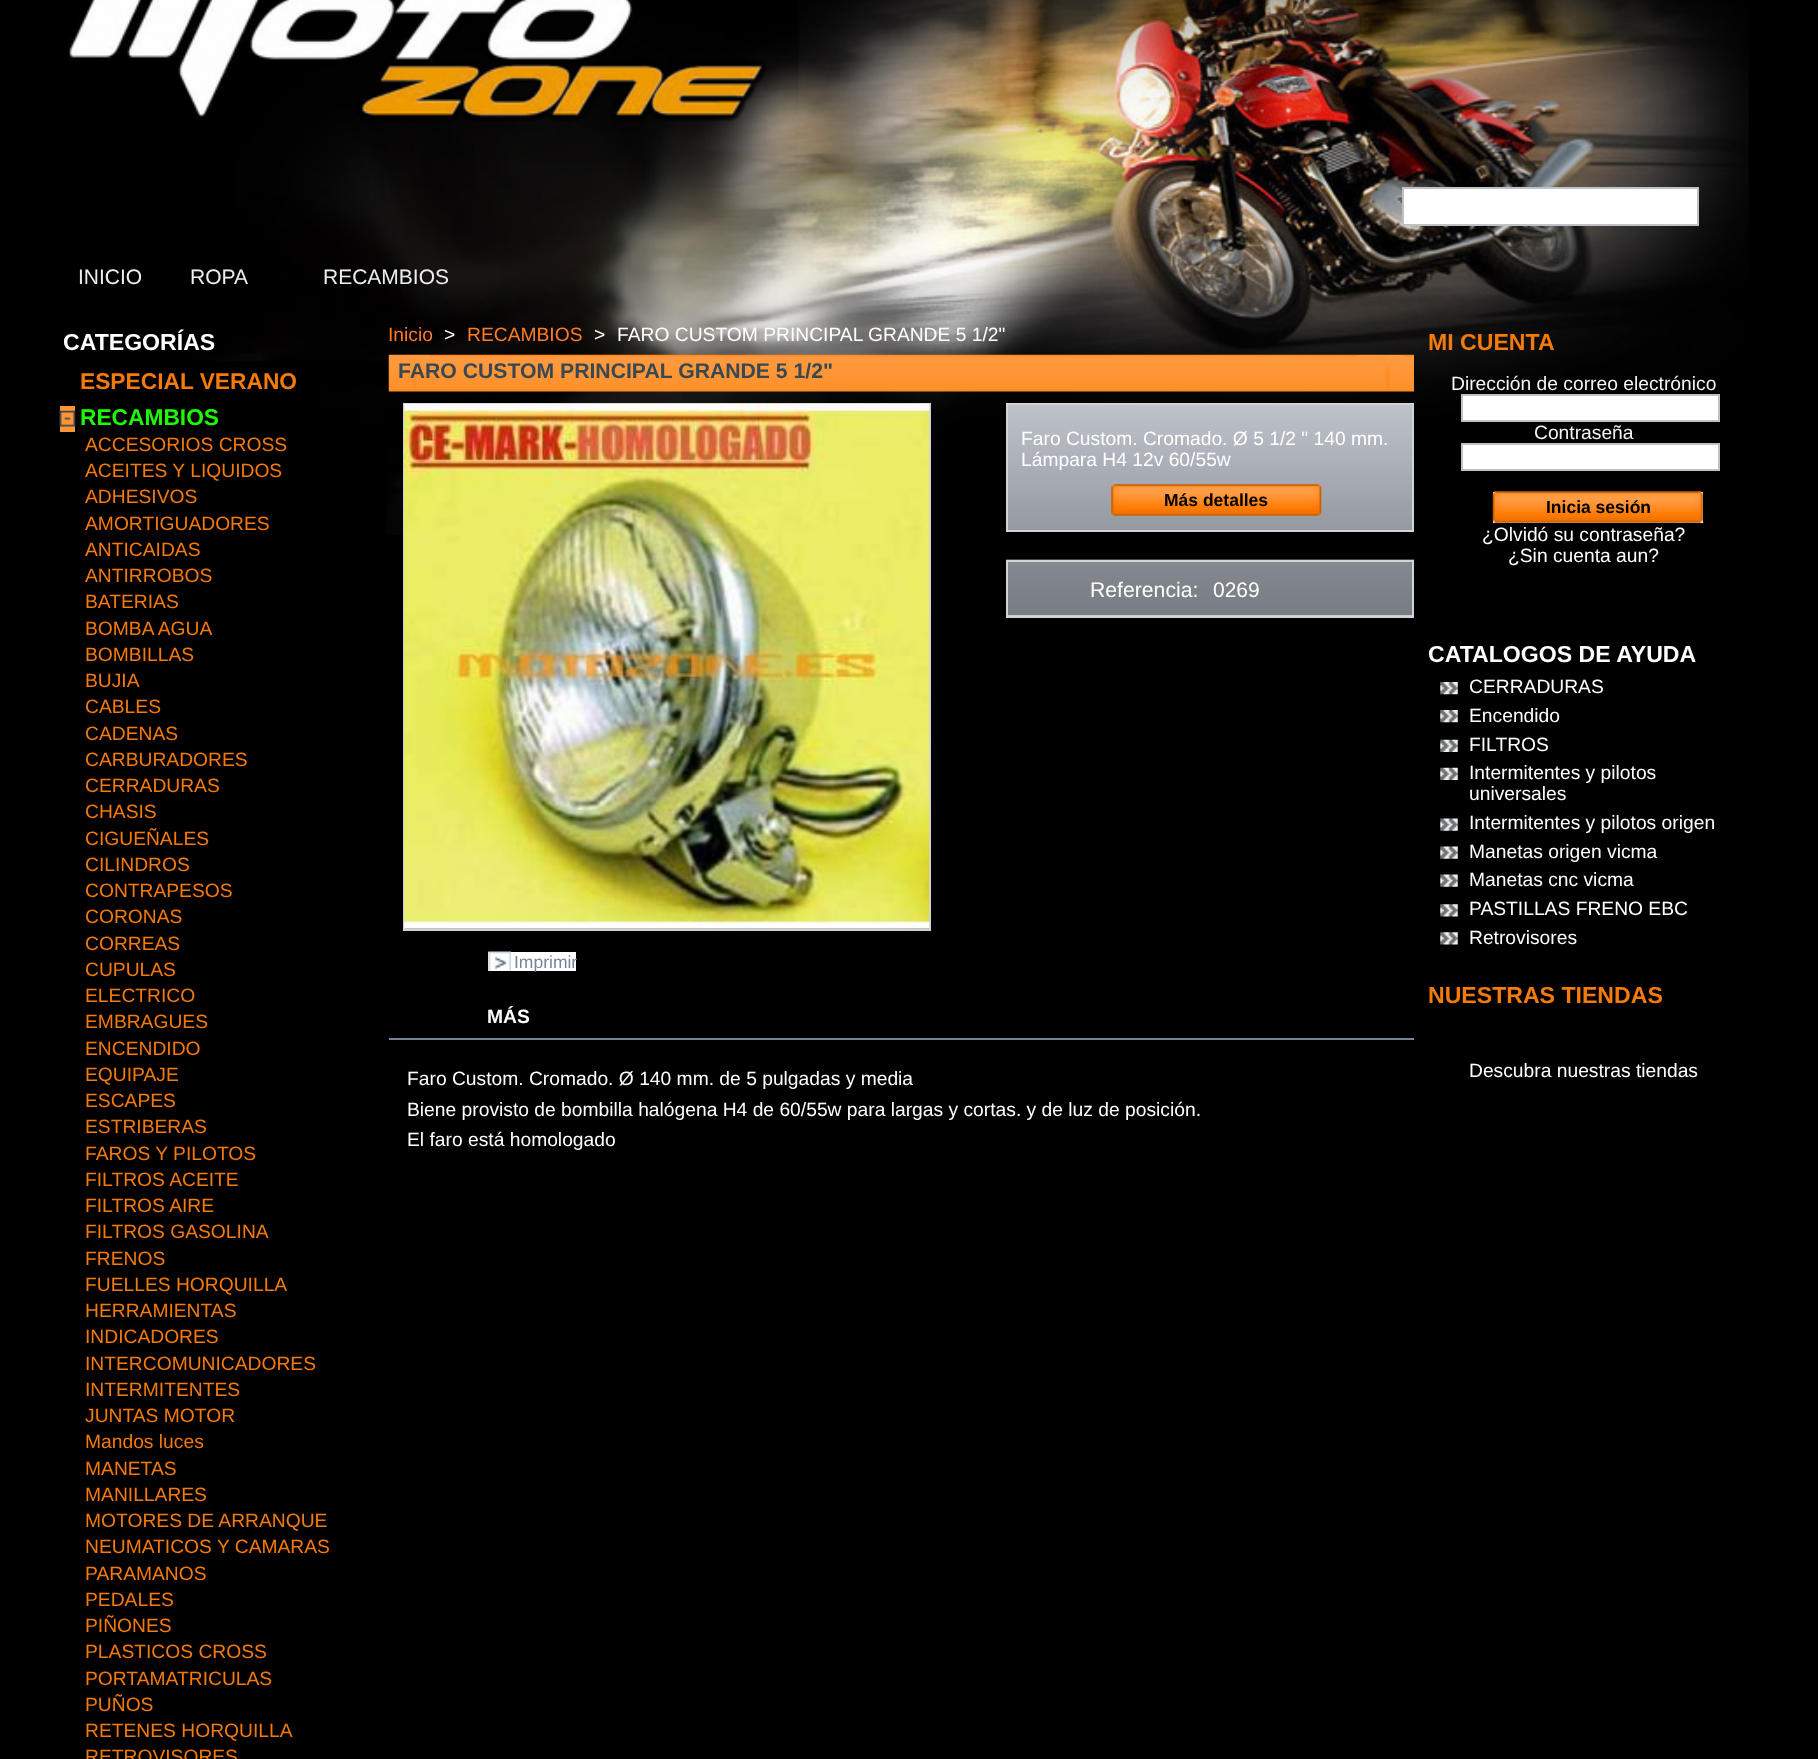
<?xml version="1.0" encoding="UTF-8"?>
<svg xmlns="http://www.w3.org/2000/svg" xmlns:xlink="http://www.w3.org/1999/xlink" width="1818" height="1759">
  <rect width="100%" height="100%" fill="#000000" />
  <image x="143" y="0" width="1606" height="535" xlink:href="image1.png" />
  <image x="68" y="0" width="698" height="122" xlink:href="image2.png" />
  <rect x="1403" y="188" width="295" height="37" fill="#ffffff" stroke="#bdc2c9" stroke-width="2" />
  <rect x="230" y="361" width="157" height="24" fill="#000000" />
  <rect x="143" y="440" width="244" height="95" fill="#000000" />
  <rect x="60" y="406" width="15" height="26" fill="#ff9433" />
  <image x="59" y="410" width="17" height="17" xlink:href="image3.png" />
  <image x="388" y="354" width="1026" height="38" xlink:href="image4.png" />
  <image x="1008" y="405" width="404" height="125" xlink:href="image5.png" />
  <rect x="1007" y="404" width="406" height="127" fill="none" stroke="#d0d3d8" stroke-width="2" />
  <image x="1111" y="484" width="211" height="32" xlink:href="image6.png" />
  <rect x="1008" y="615" width="404" height="1" fill="#f1f2f4" />
  <image x="1006" y="559" width="408" height="57" xlink:href="image7.png" />
  <rect x="1007" y="561" width="406" height="56" fill="none" stroke="#d0d3d8" stroke-width="2" />
  <rect x="404" y="404" width="526" height="526" fill="none" stroke="#d0d1d5" stroke-width="2" />
  <image x="404" y="403" width="526" height="526" xlink:href="image8.png" />
  <rect x="488" y="952" width="88" height="19" fill="#ffffff" />
  <image x="488" y="951" width="23" height="20" xlink:href="image9.png" />
  <rect x="389" y="1038" width="1025" height="2" fill="#76839b" />
  <rect x="1462" y="395" width="257" height="26" fill="#ffffff" stroke="#bdc2c9" stroke-width="2" />
  <rect x="1462" y="444" width="257" height="26" fill="#ffffff" stroke="#bdc2c9" stroke-width="2" />
  <rect x="1493" y="492" width="210" height="31" fill="#efefef" />
  <image x="1492" y="491" width="211" height="32" xlink:href="image10.png" />
  <image x="1440" y="682" width="18" height="13" xlink:href="image11.png" />
  <image x="1440" y="710" width="18" height="13" xlink:href="image11.png" />
  <image x="1440" y="739" width="18" height="13" xlink:href="image12.png" />
  <image x="1440" y="767" width="18" height="13" xlink:href="image12.png" />
  <image x="1440" y="818" width="18" height="13" xlink:href="image13.png" />
  <image x="1440" y="846" width="18" height="13" xlink:href="image13.png" />
  <image x="1440" y="874" width="18" height="13" xlink:href="image13.png" />
  <image x="1440" y="904" width="18" height="13" xlink:href="image14.png" />
  <image x="1440" y="932" width="18" height="13" xlink:href="image14.png" />
  <text x="78" y="284" style="font-family: Liberation Sans; font-size: 21px; fill: #ededed">INICIO</text>
  <text x="190" y="284" style="font-family: Liberation Sans; font-size: 21px; fill: #ededed">ROPA</text>
  <text x="323" y="284" style="font-family: Liberation Sans; font-size: 21px; fill: #ededed">RECAMBIOS</text>
  <text x="63" y="350" style="font-family: Liberation Sans; font-size: 23.1px; font-weight: bold; fill: #ffffff">CATEGORÍAS</text>
  <text x="80" y="389" style="font-family: Liberation Sans; font-size: 22.75px; font-weight: bold; fill: #f47a0b">ESPECIAL VERANO</text>
  <text x="80" y="425" style="font-family: Liberation Sans; font-size: 22.75px; font-weight: bold; fill: #1efa05">RECAMBIOS</text>
  <text x="85" y="451" style="font-family: Liberation Sans; font-size: 19.25px; fill: #f47a0b">ACCESORIOS CROSS</text>
  <text x="85" y="477" style="font-family: Liberation Sans; font-size: 19.25px; fill: #f47a0b">ACEITES Y LIQUIDOS</text>
  <text x="85" y="503" style="font-family: Liberation Sans; font-size: 19.25px; fill: #f47a0b">ADHESIVOS</text>
  <text x="85" y="530" style="font-family: Liberation Sans; font-size: 19.25px; fill: #f47a0b">AMORTIGUADORES</text>
  <text x="85" y="556" style="font-family: Liberation Sans; font-size: 19.25px; fill: #f47a0b">ANTICAIDAS</text>
  <text x="85" y="582" style="font-family: Liberation Sans; font-size: 19.25px; fill: #f47a0b">ANTIRROBOS</text>
  <text x="85" y="608" style="font-family: Liberation Sans; font-size: 19.25px; fill: #f47a0b">BATERIAS</text>
  <text x="85" y="635" style="font-family: Liberation Sans; font-size: 19.25px; fill: #f47a0b">BOMBA AGUA</text>
  <text x="85" y="661" style="font-family: Liberation Sans; font-size: 19.25px; fill: #f47a0b">BOMBILLAS</text>
  <text x="85" y="687" style="font-family: Liberation Sans; font-size: 19.25px; fill: #f47a0b">BUJIA</text>
  <text x="85" y="713" style="font-family: Liberation Sans; font-size: 19.25px; fill: #f47a0b">CABLES</text>
  <text x="85" y="740" style="font-family: Liberation Sans; font-size: 19.25px; fill: #f47a0b">CADENAS</text>
  <text x="85" y="766" style="font-family: Liberation Sans; font-size: 19.25px; fill: #f47a0b">CARBURADORES</text>
  <text x="85" y="792" style="font-family: Liberation Sans; font-size: 19.25px; fill: #f47a0b">CERRADURAS</text>
  <text x="85" y="818" style="font-family: Liberation Sans; font-size: 19.25px; fill: #f47a0b">CHASIS</text>
  <text x="85" y="845" style="font-family: Liberation Sans; font-size: 19.25px; fill: #f47a0b">CIGUEÑALES</text>
  <text x="85" y="871" style="font-family: Liberation Sans; font-size: 19.25px; fill: #f47a0b">CILINDROS</text>
  <text x="85" y="897" style="font-family: Liberation Sans; font-size: 19.25px; fill: #f47a0b">CONTRAPESOS</text>
  <text x="85" y="923" style="font-family: Liberation Sans; font-size: 19.25px; fill: #f47a0b">CORONAS</text>
  <text x="85" y="950" style="font-family: Liberation Sans; font-size: 19.25px; fill: #f47a0b">CORREAS</text>
  <text x="85" y="976" style="font-family: Liberation Sans; font-size: 19.25px; fill: #f47a0b">CUPULAS</text>
  <text x="85" y="1002" style="font-family: Liberation Sans; font-size: 19.25px; fill: #f47a0b">ELECTRICO</text>
  <text x="85" y="1028" style="font-family: Liberation Sans; font-size: 19.25px; fill: #f47a0b">EMBRAGUES</text>
  <text x="85" y="1055" style="font-family: Liberation Sans; font-size: 19.25px; fill: #f47a0b">ENCENDIDO</text>
  <text x="85" y="1081" style="font-family: Liberation Sans; font-size: 19.25px; fill: #f47a0b">EQUIPAJE</text>
  <text x="85" y="1107" style="font-family: Liberation Sans; font-size: 19.25px; fill: #f47a0b">ESCAPES</text>
  <text x="85" y="1133" style="font-family: Liberation Sans; font-size: 19.25px; fill: #f47a0b">ESTRIBERAS</text>
  <text x="85" y="1160" style="font-family: Liberation Sans; font-size: 19.25px; fill: #f47a0b">FAROS Y PILOTOS</text>
  <text x="85" y="1186" style="font-family: Liberation Sans; font-size: 19.25px; fill: #f47a0b">FILTROS ACEITE</text>
  <text x="85" y="1212" style="font-family: Liberation Sans; font-size: 19.25px; fill: #f47a0b">FILTROS AIRE</text>
  <text x="85" y="1238" style="font-family: Liberation Sans; font-size: 19.25px; fill: #f47a0b">FILTROS GASOLINA</text>
  <text x="85" y="1265" style="font-family: Liberation Sans; font-size: 19.25px; fill: #f47a0b">FRENOS</text>
  <text x="85" y="1291" style="font-family: Liberation Sans; font-size: 19.25px; fill: #f47a0b">FUELLES HORQUILLA</text>
  <text x="85" y="1317" style="font-family: Liberation Sans; font-size: 19.25px; fill: #f47a0b">HERRAMIENTAS</text>
  <text x="85" y="1343" style="font-family: Liberation Sans; font-size: 19.25px; fill: #f47a0b">INDICADORES</text>
  <text x="85" y="1370" style="font-family: Liberation Sans; font-size: 19.25px; fill: #f47a0b">INTERCOMUNICADORES</text>
  <text x="85" y="1396" style="font-family: Liberation Sans; font-size: 19.25px; fill: #f47a0b">INTERMITENTES</text>
  <text x="85" y="1422" style="font-family: Liberation Sans; font-size: 19.25px; fill: #f47a0b">JUNTAS MOTOR</text>
  <text x="85" y="1448" style="font-family: Liberation Sans; font-size: 19.25px; fill: #f47a0b">Mandos luces</text>
  <text x="85" y="1475" style="font-family: Liberation Sans; font-size: 19.25px; fill: #f47a0b">MANETAS</text>
  <text x="85" y="1501" style="font-family: Liberation Sans; font-size: 19.25px; fill: #f47a0b">MANILLARES</text>
  <text x="85" y="1527" style="font-family: Liberation Sans; font-size: 19.25px; fill: #f47a0b">MOTORES DE ARRANQUE</text>
  <text x="85" y="1553" style="font-family: Liberation Sans; font-size: 19.25px; fill: #f47a0b">NEUMATICOS Y CAMARAS</text>
  <text x="85" y="1580" style="font-family: Liberation Sans; font-size: 19.25px; fill: #f47a0b">PARAMANOS</text>
  <text x="85" y="1606" style="font-family: Liberation Sans; font-size: 19.25px; fill: #f47a0b">PEDALES</text>
  <text x="85" y="1632" style="font-family: Liberation Sans; font-size: 19.25px; fill: #f47a0b">PIÑONES</text>
  <text x="85" y="1658" style="font-family: Liberation Sans; font-size: 19.25px; fill: #f47a0b">PLASTICOS CROSS</text>
  <text x="85" y="1685" style="font-family: Liberation Sans; font-size: 19.25px; fill: #f47a0b">PORTAMATRICULAS</text>
  <text x="85" y="1711" style="font-family: Liberation Sans; font-size: 19.25px; fill: #f47a0b">PUÑOS</text>
  <text x="85" y="1737" style="font-family: Liberation Sans; font-size: 19.25px; fill: #f47a0b">RETENES HORQUILLA</text>
  <text x="85" y="1763" style="font-family: Liberation Sans; font-size: 19.25px; fill: #f47a0b">RETROVISORES</text>
  <text x="388" y="341" style="font-family: Liberation Sans; font-size: 19.25px; fill: #ff7c23">Inicio</text>
  <text x="444" y="341" style="font-family: Liberation Sans; font-size: 19.25px; fill: #ffffff">&gt;</text>
  <text x="467" y="341" style="font-family: Liberation Sans; font-size: 19.25px; fill: #ff7c23">RECAMBIOS</text>
  <text x="594" y="341" style="font-family: Liberation Sans; font-size: 19.25px; fill: #ffffff">&gt;</text>
  <text x="617" y="341" style="font-family: Liberation Sans; font-size: 19.25px; fill: #ffffff">FARO CUSTOM PRINCIPAL GRANDE 5 1/2"</text>
  <text x="398" y="378" style="font-family: Liberation Sans; font-size: 21.2px; font-weight: bold; fill: #374853">FARO CUSTOM PRINCIPAL GRANDE 5 1/2"</text>
  <text x="1021" y="445" style="font-family: Liberation Sans; font-size: 19.25px; fill: #ffffff">Faro Custom. Cromado. Ø 5 1/2 " 140 mm.</text>
  <text x="1021" y="466" style="font-family: Liberation Sans; font-size: 19.25px; fill: #ffffff">Lámpara H4 12v 60/55w</text>
  <text x="1164" y="506" style="font-family: Liberation Sans; font-size: 17.5px; font-weight: bold; fill: #000000">Más detalles</text>
  <text x="1090" y="597" style="font-family: Liberation Sans; font-size: 21.2px; fill: #ffffff">Referencia:</text>
  <text x="1213" y="597" style="font-family: Liberation Sans; font-size: 21px; fill: #ffffff">0269</text>
  <text x="514" y="968" style="font-family: Liberation Sans; font-size: 17.5px; fill: #76839b">Imprimir</text>
  <text x="487" y="1023" style="font-family: Liberation Sans; font-size: 19.25px; font-weight: bold; fill: #ffffff">MÁS</text>
  <text x="407" y="1085" style="font-family: Liberation Sans; font-size: 19.25px; fill: #ffffff">Faro Custom. Cromado. Ø 140 mm. de 5 pulgadas y media</text>
  <text x="407" y="1116" style="font-family: Liberation Sans; font-size: 19.25px; fill: #ffffff">Biene provisto de bombilla halógena H4 de 60/55w para largas y cortas. y de luz de posición.</text>
  <text x="407" y="1146" style="font-family: Liberation Sans; font-size: 19.25px; fill: #ffffff">El faro está homologado</text>
  <text x="1428" y="350" style="font-family: Liberation Sans; font-size: 23.1px; font-weight: bold; fill: #f47a0b">MI CUENTA</text>
  <text x="1451" y="390" style="font-family: Liberation Sans; font-size: 19.25px; fill: #f4f4f5">Dirección de correo electrónico</text>
  <text x="1534" y="439" style="font-family: Liberation Sans; font-size: 19.25px; fill: #f4f4f5">Contraseña</text>
  <text x="1546" y="513" style="font-family: Liberation Sans; font-size: 17.5px; font-weight: bold; fill: #000000">Inicia sesión</text>
  <text x="1482" y="541" style="font-family: Liberation Sans; font-size: 19.25px; fill: #ffffff">¿Olvidó su contraseña?</text>
  <text x="1508" y="562" style="font-family: Liberation Sans; font-size: 19.25px; fill: #ffffff">¿Sin cuenta aun?</text>
  <text x="1428" y="662" style="font-family: Liberation Sans; font-size: 23.1px; font-weight: bold; fill: #ffffff">CATALOGOS DE AYUDA</text>
  <text x="1469" y="693" style="font-family: Liberation Sans; font-size: 19.25px; fill: #ffffff">CERRADURAS</text>
  <text x="1469" y="722" style="font-family: Liberation Sans; font-size: 19.25px; fill: #ffffff">Encendido</text>
  <text x="1469" y="751" style="font-family: Liberation Sans; font-size: 19.25px; fill: #ffffff">FILTROS</text>
  <text x="1469" y="779" style="font-family: Liberation Sans; font-size: 19.25px; fill: #ffffff">Intermitentes y pilotos</text>
  <text x="1469" y="800" style="font-family: Liberation Sans; font-size: 19.25px; fill: #ffffff">universales</text>
  <text x="1469" y="829" style="font-family: Liberation Sans; font-size: 19.25px; fill: #ffffff">Intermitentes y pilotos origen</text>
  <text x="1469" y="858" style="font-family: Liberation Sans; font-size: 19.25px; fill: #ffffff">Manetas origen vicma</text>
  <text x="1469" y="886" style="font-family: Liberation Sans; font-size: 19.25px; fill: #ffffff">Manetas cnc vicma</text>
  <text x="1469" y="915" style="font-family: Liberation Sans; font-size: 19.25px; fill: #ffffff">PASTILLAS FRENO EBC</text>
  <text x="1469" y="944" style="font-family: Liberation Sans; font-size: 19.25px; fill: #ffffff">Retrovisores</text>
  <text x="1428" y="1003" style="font-family: Liberation Sans; font-size: 23.1px; font-weight: bold; fill: #f47a0b">NUESTRAS TIENDAS</text>
  <text x="1469" y="1077" style="font-family: Liberation Sans; font-size: 19.25px; fill: #ffffff">Descubra nuestras tiendas</text>
</svg>
